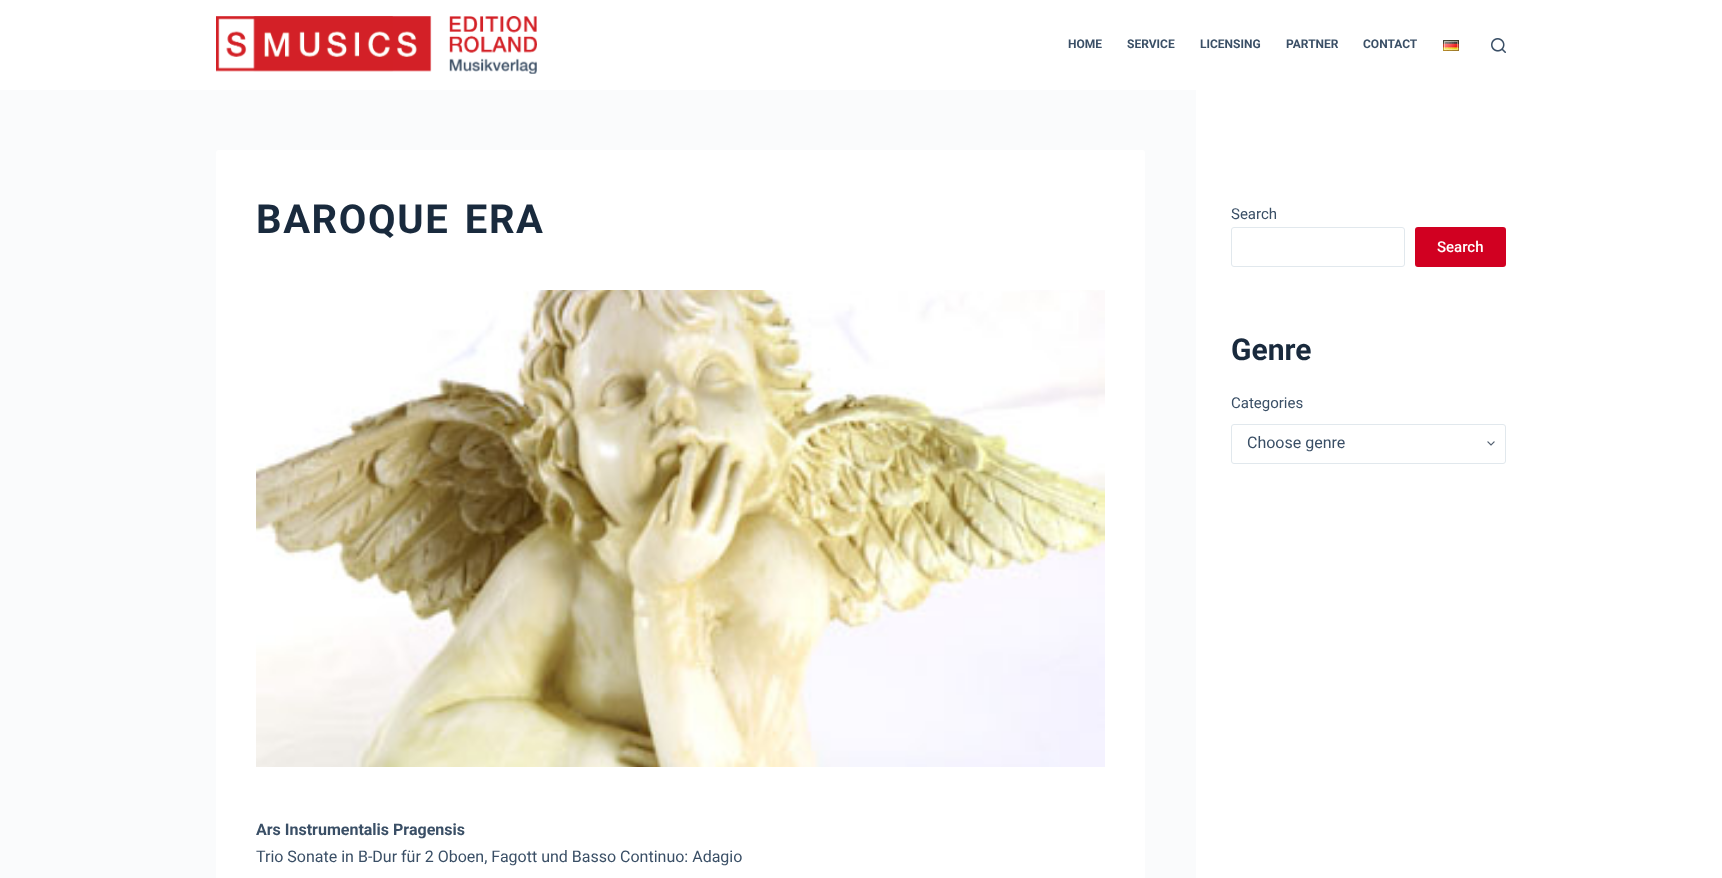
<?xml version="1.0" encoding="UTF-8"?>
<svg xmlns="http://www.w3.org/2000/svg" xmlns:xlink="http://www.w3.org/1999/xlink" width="1722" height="878">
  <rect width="100%" height="100%" fill="#fafbfc" />
  <rect width="1722" height="90" fill="#ffffff" />
  <image x="216" y="16" width="321" height="58" xlink:href="image1.png" />
  <image x="1443" y="40" width="16" height="11" xlink:href="image2.png" />
  <image x="1491" y="38" width="15" height="15" xlink:href="image3.png" />
  <rect x="216" y="150" width="929" height="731" rx="3" fill="#ffffff" />
  <image x="256" y="290" width="849" height="477" xlink:href="image4.png" />
  <rect x="1196" y="90" width="526" height="788" fill="#ffffff" />
  <rect x="1231.5" y="227.5" width="173" height="39" rx="2.5" fill="none" stroke="#e1e8ed" />
  <rect x="1416" y="228" width="89" height="38" rx="2" fill="#d10021" stroke="#d10021" stroke-width="2" />
  <image x="1487" y="441" width="8" height="5" xlink:href="image5.png" />
  <rect x="1231.5" y="424.5" width="274" height="39" rx="2.5" fill="none" stroke="#e1e8ed" />
  <text x="1068" y="48" style="font-family: Roboto; font-size: 12px; font-weight: bold; fill: #3a4f66">HOME</text>
  <text x="1127" y="48" style="font-family: Roboto; font-size: 12px; font-weight: bold; fill: #3a4f66">SERVICE</text>
  <text x="1200" y="48" style="font-family: Roboto; font-size: 12px; font-weight: bold; fill: #3a4f66">LICENSING</text>
  <text x="1286" y="48" style="font-family: Roboto; font-size: 12px; font-weight: bold; fill: #3a4f66">PARTNER</text>
  <text x="1363" y="48" style="font-family: Roboto; font-size: 12px; font-weight: bold; fill: #3a4f66">CONTACT</text>
  <text x="256" y="233" word-spacing="4" style="font-family: Roboto; font-size: 40px; font-weight: bold; letter-spacing: 1.6px; fill: #192a3d">BAROQUE ERA</text>
  <text x="256" y="835" style="font-family: Roboto; font-size: 16px; font-weight: bold; fill: #3a4f66">Ars Instrumentalis Pragensis</text>
  <text x="256" y="862" style="font-family: Roboto; font-size: 16px; fill: #3a4f66">Trio Sonate in B-Dur für 2 Oboen, Fagott und Basso Continuo: Adagio</text>
  <text x="1231" y="219" style="font-family: Roboto; font-size: 15px; fill: #3a4f66">Search</text>
  <text x="1437" y="252" style="font-family: Roboto; font-size: 15px; font-weight: 500; fill: #ffffff">Search</text>
  <text x="1231" y="360" style="font-family: Roboto; font-size: 30px; font-weight: bold; fill: #192a3d">Genre</text>
  <text x="1231" y="408" style="font-family: Roboto; font-size: 15px; fill: #3a4f66">Categories</text>
  <text x="1247" y="448" style="font-family: Roboto; font-size: 16px; fill: #3a4f66">Choose genre</text>
</svg>
